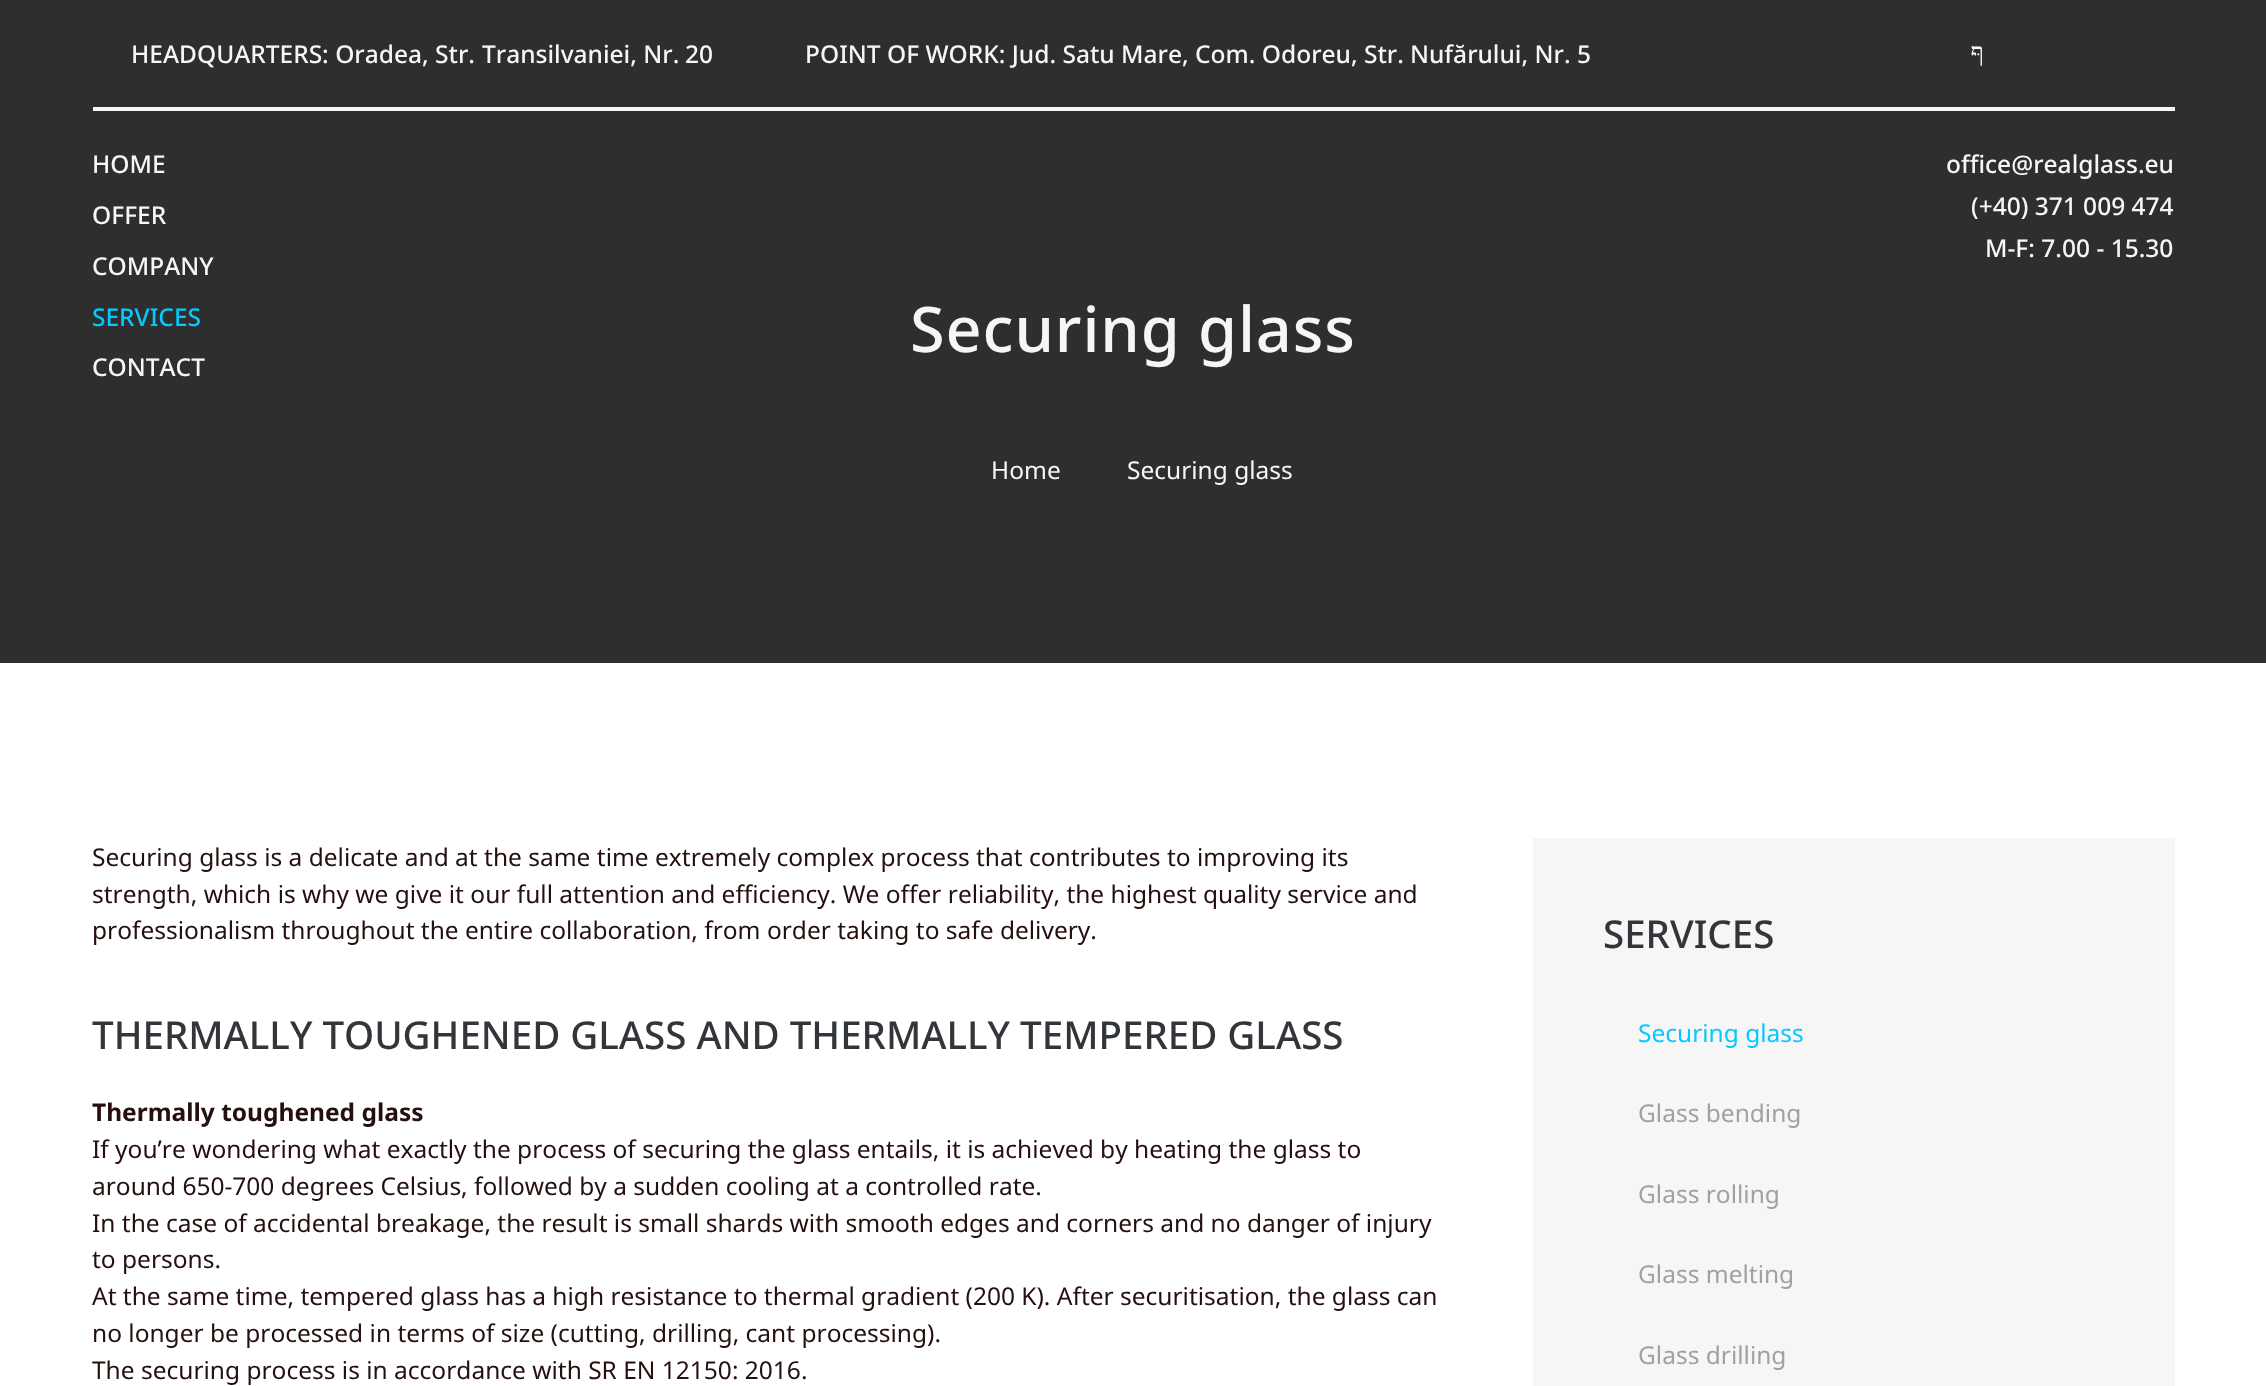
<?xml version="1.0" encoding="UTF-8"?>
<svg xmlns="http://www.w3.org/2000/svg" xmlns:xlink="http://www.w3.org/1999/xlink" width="2266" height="1386">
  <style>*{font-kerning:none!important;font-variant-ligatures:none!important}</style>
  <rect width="100%" height="100%" fill="#ffffff" />
  <rect width="2266" height="663" fill="#2e2e2e" />
  <rect x="93" y="107" width="2082" height="4" fill="#f6f6f6" />
  <rect x="1533" y="838" width="642" height="548" fill="#f6f6f6" />
  <text x="131" y="63" style="font-family: Noto Sans; font-size: 24.5px; font-weight: 500; fill: #f6f6f6">HEADQUARTERS: Oradea, Str.</text>
  <text x="482" y="63" style="font-family: Noto Sans; font-size: 24.5px; font-weight: 500; fill: #f6f6f6">Transilvaniei, Nr.</text>
  <text x="685" y="63" style="font-family: Noto Sans; font-size: 24.5px; font-weight: 500; fill: #f6f6f6">20</text>
  <text x="805" y="63" style="font-family: Noto Sans; font-size: 24.5px; font-weight: 500; fill: #f6f6f6">POINT OF WORK: Jud. Satu Mare, Com. Odoreu, Str.</text>
  <text x="1410" y="63" style="font-family: Noto Sans; font-size: 24.5px; font-weight: 500; fill: #f6f6f6">Nufărului, Nr. 5</text>
  <text x="1984" y="61" style="font-family: Liberation Serif; font-size: 26px; direction: rtl; fill: #f6f6f6">ףּ</text>
  <text x="92" y="173" style="font-family: Noto Sans; font-size: 24.5px; font-weight: 500; fill: #f6f6f6">HOME</text>
  <text x="92" y="224" style="font-family: Noto Sans; font-size: 24.5px; font-weight: 500; fill: #f6f6f6">OFFER</text>
  <text x="92" y="275" style="font-family: Noto Sans; font-size: 24.5px; font-weight: 500; fill: #f6f6f6">COMPANY</text>
  <text x="92" y="326" style="font-family: Noto Sans; font-size: 24.5px; font-weight: 500; fill: #05c9ff">SERVICES</text>
  <text x="92" y="376" style="font-family: Noto Sans; font-size: 24.5px; font-weight: 500; fill: #f6f6f6">CONTACT</text>
  <text x="1946" y="173" style="font-family: Noto Sans; font-size: 24.5px; font-weight: 500; fill: #f6f6f6">office@realglass.eu</text>
  <text x="1971" y="215" style="font-family: Noto Sans; font-size: 24.5px; font-weight: 500; fill: #f6f6f6">(+40) 371 009 474</text>
  <text x="1985" y="257" style="font-family: Noto Sans; font-size: 24.5px; font-weight: 500; fill: #f6f6f6">M-F: 7.00 - 15.30</text>
  <text x="910" y="352" style="font-family: Noto Sans; font-size: 63px; font-weight: 500; letter-spacing: 0.9px; fill: #f6f6f6">Securing glass</text>
  <text x="991" y="479" style="font-family: Noto Sans; font-size: 24.5px; fill: #f6f6f6">Home</text>
  <text x="1127" y="479" style="font-family: Noto Sans; font-size: 24.5px; fill: #f6f6f6">Securing glass</text>
  <text x="92" y="866" style="font-family: Noto Sans; font-size: 24.5px; fill: #250f0f">Securing glass is a delicate and at the same time extremely complex process that contributes to improving its</text>
  <text x="92" y="903" style="font-family: Noto Sans; font-size: 24.5px; fill: #250f0f">strength, which is why we give it our full attention and efficiency. We offer reliability, the highest quality service and</text>
  <text x="92" y="939" style="font-family: Noto Sans; font-size: 24.5px; fill: #250f0f">professionalism throughout the entire collaboration, from order taking to safe delivery.</text>
  <text x="92" y="1049" style="font-family: Noto Sans; font-size: 38.5px; font-weight: 500; fill: #323539">THERMALLY TOUGHENED GLASS AND THERMALLY TEMPERED GLASS</text>
  <text x="92" y="1121" style="font-family: Noto Sans; font-size: 24.5px; font-weight: bold; fill: #250f0f">Thermally toughened glass</text>
  <text x="92" y="1158" style="font-family: Noto Sans; font-size: 24.5px; fill: #250f0f">If you’re wondering what exactly the process of securing the glass entails, it is achieved by heating the glass to</text>
  <text x="92" y="1195" style="font-family: Noto Sans; font-size: 24.5px; fill: #250f0f">around 650-700 degrees Celsius, followed by a sudden cooling at a controlled rate.</text>
  <text x="92" y="1232" style="font-family: Noto Sans; font-size: 24.5px; fill: #250f0f">In the case of accidental breakage, the result is small shards with smooth edges and corners and no danger of injury</text>
  <text x="92" y="1268" style="font-family: Noto Sans; font-size: 24.5px; fill: #250f0f">to persons.</text>
  <text x="92" y="1305" style="font-family: Noto Sans; font-size: 24.5px; fill: #250f0f">At the same time, tempered glass has a high resistance to thermal gradient (200 K). After securitisation, the glass can</text>
  <text x="92" y="1342" style="font-family: Noto Sans; font-size: 24.5px; fill: #250f0f">no longer be processed in terms of size (cutting, drilling, cant processing).</text>
  <text x="92" y="1379" style="font-family: Noto Sans; font-size: 24.5px; fill: #250f0f">The securing process is in accordance with SR EN 12150: 2016.</text>
  <text x="1603" y="948" style="font-family: Noto Sans; font-size: 38.5px; font-weight: 500; fill: #323539">SERVICES</text>
  <text x="1638" y="1042" style="font-family: Noto Sans; font-size: 24.5px; fill: #05c9ff">Securing glass</text>
  <text x="1638" y="1122" style="font-family: Noto Sans; font-size: 24.5px; fill: #a1a1a1">Glass bending</text>
  <text x="1638" y="1203" style="font-family: Noto Sans; font-size: 24.5px; fill: #a1a1a1">Glass rolling</text>
  <text x="1638" y="1283" style="font-family: Noto Sans; font-size: 24.5px; fill: #a1a1a1">Glass melting</text>
  <text x="1638" y="1364" style="font-family: Noto Sans; font-size: 24.5px; fill: #a1a1a1">Glass drilling</text>
</svg>
